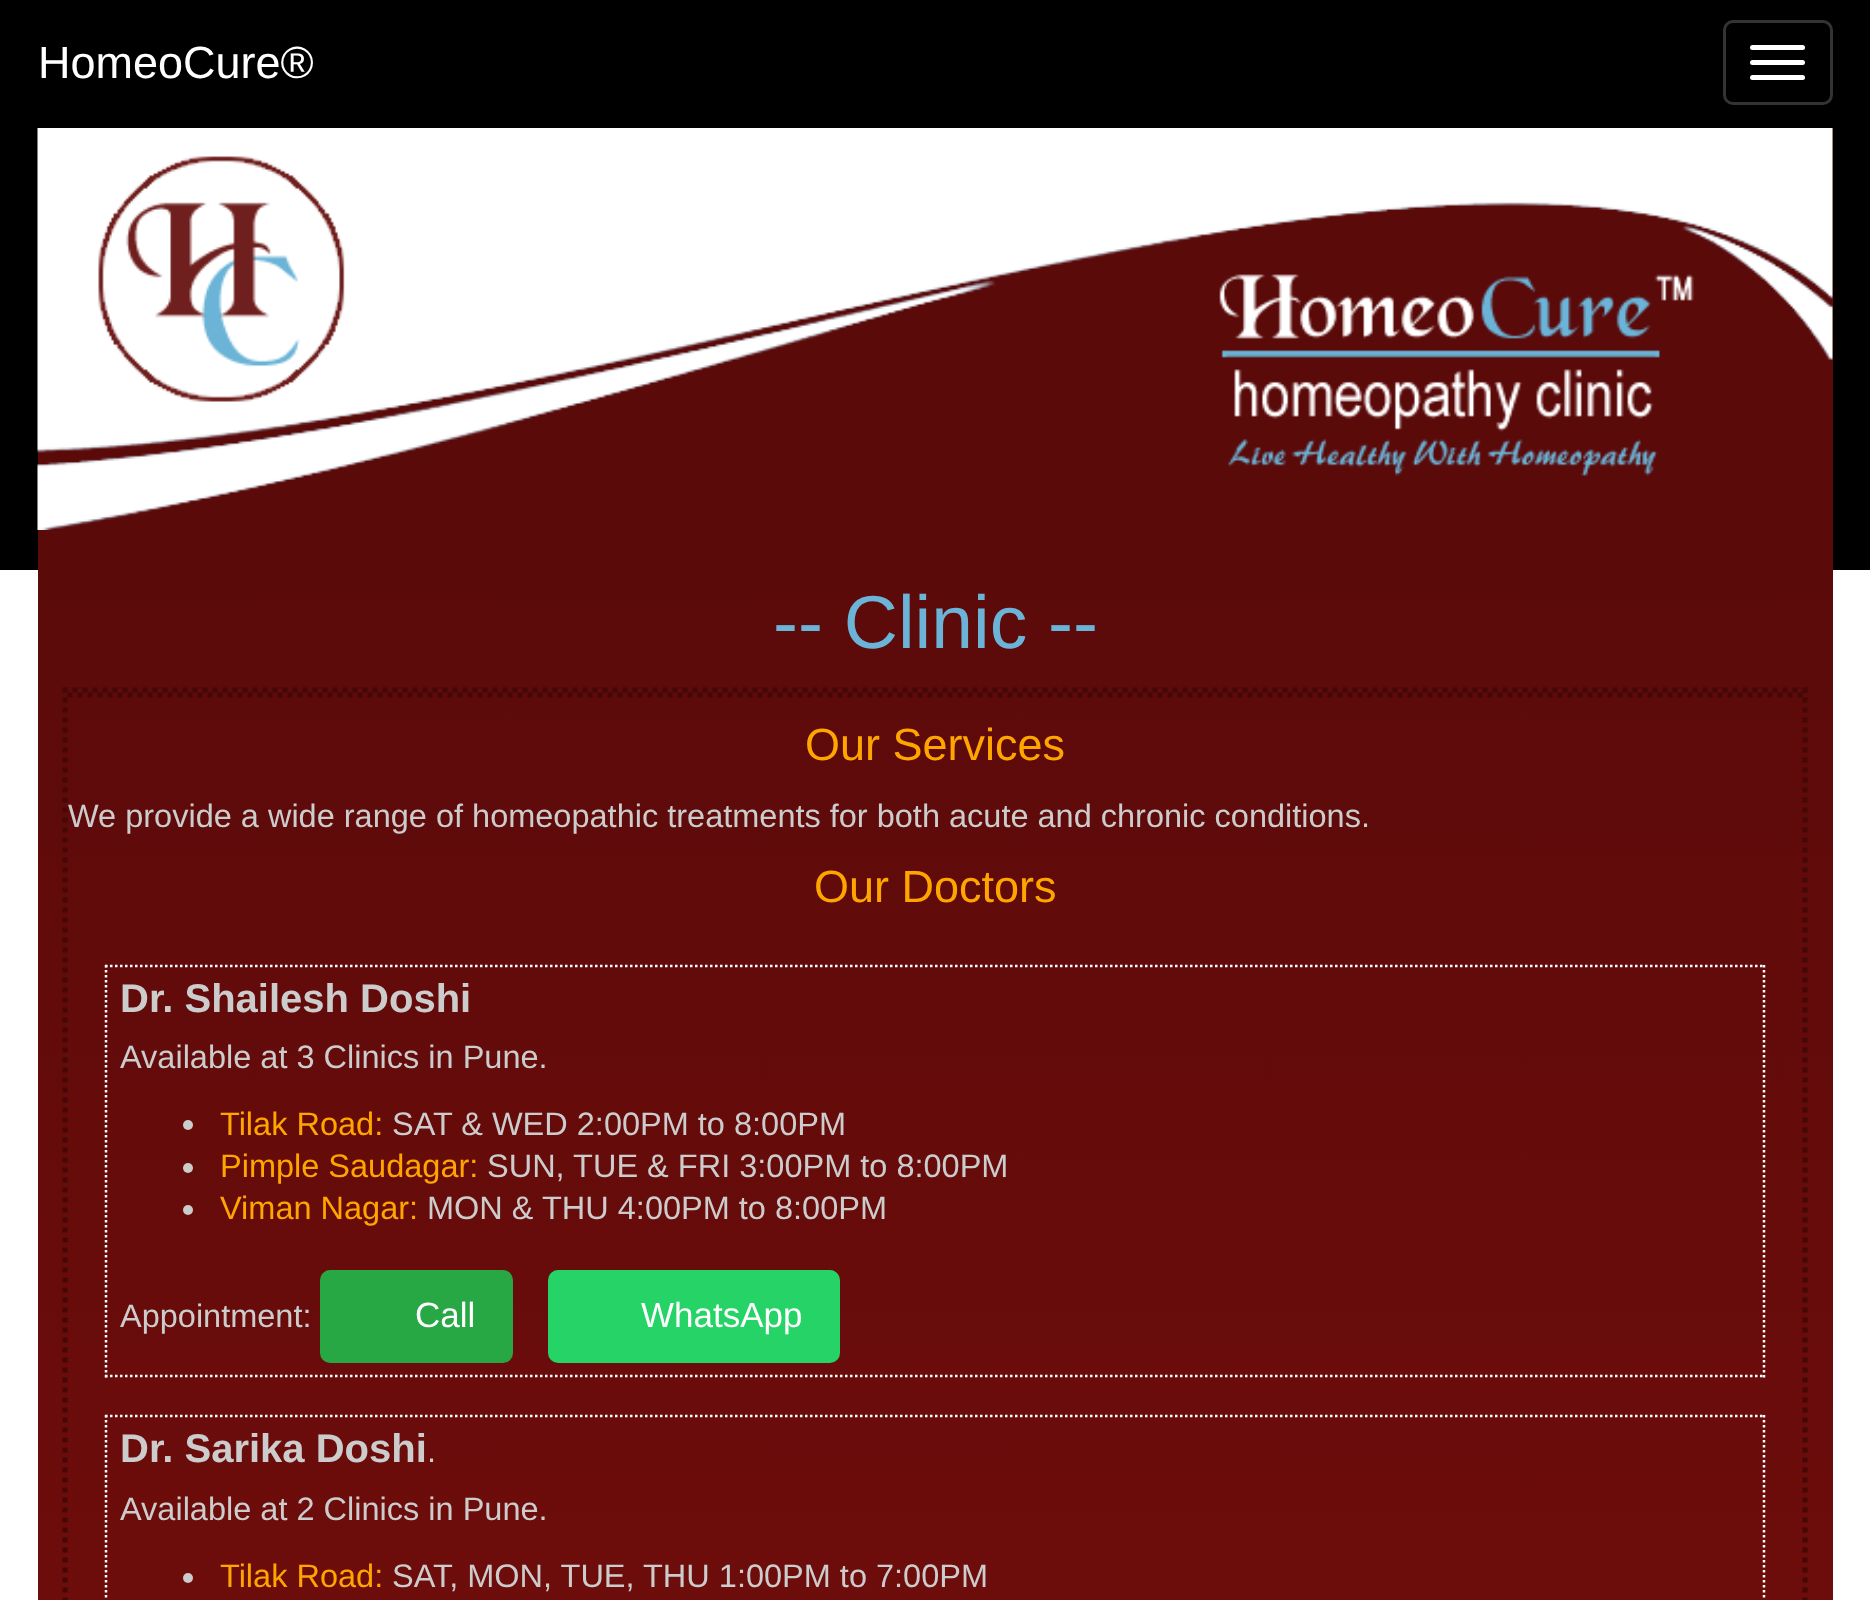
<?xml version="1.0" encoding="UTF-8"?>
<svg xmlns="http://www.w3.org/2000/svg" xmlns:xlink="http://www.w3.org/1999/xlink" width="1870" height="1600">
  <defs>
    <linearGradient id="g1" gradientUnits="userSpaceOnUse" x1="935" y1="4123" x2="935" y2="125"><stop offset="0.04" stop-color="#b21513" /><stop offset="0.52" stop-color="#750e0c" /><stop offset="0.89" stop-color="#5b0a0a" /></linearGradient>
  </defs>
  <rect width="100%" height="100%" fill="#ffffff" />
  <rect width="1870" height="570" fill="#000000" />
  <rect x="1724.5" y="21.5" width="107" height="82" rx="8.5" fill="none" stroke="#333333" stroke-width="3" />
  <rect x="1750" y="45" width="55" height="5" rx="2.5" fill="#ffffff" />
  <rect x="1750" y="60" width="55" height="5" rx="2.5" fill="#ffffff" />
  <rect x="1750" y="75" width="55" height="5" rx="2.5" fill="#ffffff" />
  <rect x="38" y="128" width="1795" height="1472" fill="url(#g1)" />
  <image x="37" y="128" width="1796" height="402" xlink:href="image1.png" />
  <path d="M 62.5 690 h 1745" fill="none" stroke="#450807" stroke-width="5" stroke-dasharray="5 5" />
  <path d="M 1805 687.5 v 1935" fill="none" stroke="#450807" stroke-width="5" stroke-dasharray="5 5" />
  <path d="M 65 687.5 v 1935" fill="none" stroke="#450807" stroke-width="5" stroke-dasharray="5 5" />
  <path d="M 67.5 695 h 1735" fill="none" stroke="#450807" stroke-width="5" stroke-dasharray="5 5" />
  <path d="M 105 966 h 1660" fill="none" stroke="#ffffff" stroke-width="2.5" stroke-dasharray="2.5 2.5" />
  <path d="M 1764 965 v 412.5" fill="none" stroke="#ffffff" stroke-width="2.5" stroke-dasharray="2.5 2.5" />
  <path d="M 105 1376 h 1660" fill="none" stroke="#ffffff" stroke-width="2.5" stroke-dasharray="2.5 2.5" />
  <path d="M 106 965 v 412.5" fill="none" stroke="#ffffff" stroke-width="2.5" stroke-dasharray="2.5 2.5" />
  <circle cx="188" cy="1125" r="5" fill="#cccccc" />
  <circle cx="188" cy="1168" r="5" fill="#cccccc" />
  <circle cx="188" cy="1210" r="5" fill="#cccccc" />
  <rect x="320" y="1270" width="193" height="93" rx="10" fill="#28a745" />
  <rect x="548" y="1270" width="292" height="93" rx="10" fill="#25d366" />
  <path d="M 105 1416 h 1660" fill="none" stroke="#ffffff" stroke-width="2.5" stroke-dasharray="2.5 2.5" />
  <path d="M 1764 1415 v 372.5" fill="none" stroke="#ffffff" stroke-width="2.5" stroke-dasharray="2.5 2.5" />
  <path d="M 106 1415 v 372.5" fill="none" stroke="#ffffff" stroke-width="2.5" stroke-dasharray="2.5 2.5" />
  <circle cx="188" cy="1578" r="5" fill="#cccccc" />
  <text x="38" y="78" style="font-family: Liberation Sans; font-size: 45px; fill: #ffffff">HomeoCure®</text>
  <text x="773" y="648" style="font-family: Liberation Sans; font-size: 75px; fill: #6bb4d7">-- Clinic --</text>
  <text x="805" y="760" style="font-family: Liberation Sans; font-size: 45px; fill: #ffa500">Our Services</text>
  <text x="68" y="827" style="font-family: Liberation Sans; font-size: 32.5px; fill: #cccccc">We provide a wide range of homeopathic treatments for both acute and chronic conditions.</text>
  <text x="814" y="902" style="font-family: Liberation Sans; font-size: 45px; fill: #ffa500">Our Doctors</text>
  <text x="120" y="1012" style="font-family: Liberation Sans; font-size: 40px; font-weight: bold; fill: #cccccc">Dr. Shailesh Doshi</text>
  <text x="120" y="1068" style="font-family: Liberation Sans; font-size: 32.5px; fill: #cccccc">Available at 3 Clinics in Pune.</text>
  <text x="220" y="1135" style="font-family: Liberation Sans; font-size: 32.5px; fill: #ffa500">Tilak Road:</text>
  <text x="392" y="1135" style="font-family: Liberation Sans; font-size: 32.5px; fill: #cccccc">SAT &amp; WED 2:00PM to 8:00PM</text>
  <text x="220" y="1177" style="font-family: Liberation Sans; font-size: 32.5px; fill: #ffa500">Pimple Saudagar:</text>
  <text x="487" y="1177" style="font-family: Liberation Sans; font-size: 32.5px; fill: #cccccc">SUN, TUE &amp; FRI 3:00PM to 8:00PM</text>
  <text x="220" y="1219" style="font-family: Liberation Sans; font-size: 32.5px; fill: #ffa500">Viman Nagar:</text>
  <text x="427" y="1219" style="font-family: Liberation Sans; font-size: 32.5px; fill: #cccccc">MON &amp; THU 4:00PM to 8:00PM</text>
  <text x="120" y="1327" style="font-family: Liberation Sans; font-size: 32.5px; fill: #cccccc">Appointment:</text>
  <text x="415" y="1327" style="font-family: Liberation Sans; font-size: 35px; fill: #ffffff">Call</text>
  <text x="641" y="1327" style="font-family: Liberation Sans; font-size: 35px; fill: #ffffff">WhatsApp</text>
  <text x="120" y="1462" style="font-family: Liberation Sans; font-size: 40px; font-weight: bold; fill: #cccccc">Dr. Sarika Doshi</text>
  <text x="427" y="1462" style="font-family: Liberation Sans; font-size: 32.5px; fill: #cccccc">.</text>
  <text x="120" y="1520" style="font-family: Liberation Sans; font-size: 32.5px; fill: #cccccc">Available at 2 Clinics in Pune.</text>
  <text x="220" y="1587" style="font-family: Liberation Sans; font-size: 32.5px; fill: #ffa500">Tilak Road:</text>
  <text x="392" y="1587" style="font-family: Liberation Sans; font-size: 32.5px; fill: #cccccc">SAT, MON, TUE, THU 1:00PM to 7:00PM</text>
</svg>
